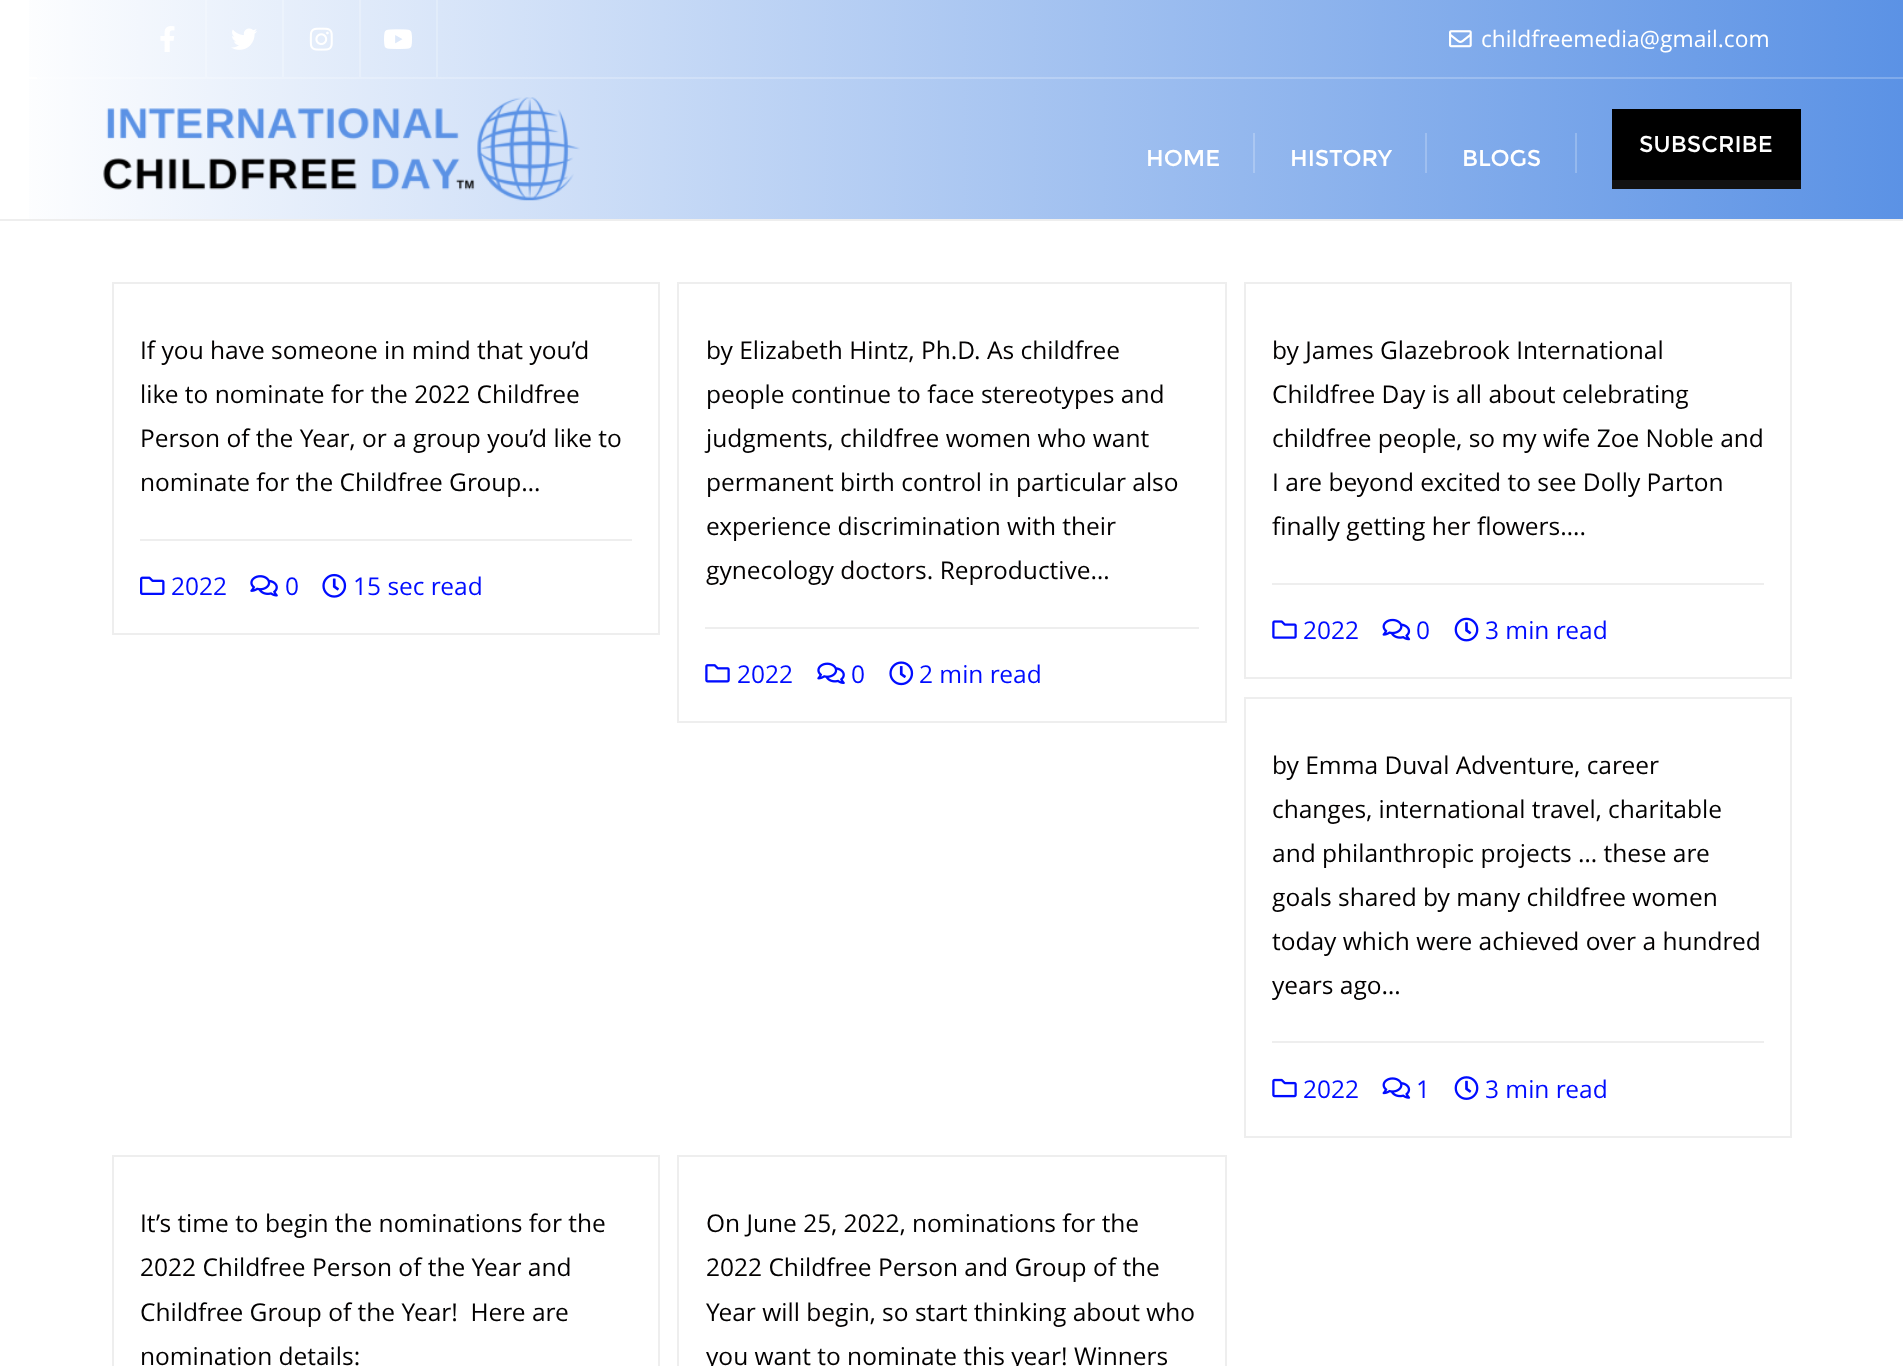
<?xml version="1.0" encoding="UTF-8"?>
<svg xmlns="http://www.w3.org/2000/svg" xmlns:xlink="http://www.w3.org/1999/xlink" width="1903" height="1366">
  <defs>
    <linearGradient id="g1" gradientUnits="userSpaceOnUse" x1="0" y1="39" x2="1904" y2="38"><stop offset="0" stop-color="#ffffff" /><stop offset="1" stop-color="#5b92e5" /></linearGradient>
    <linearGradient id="g2" gradientUnits="userSpaceOnUse" x1="0" y1="39" x2="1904" y2="38"><stop offset="0" stop-color="#ffffff" /><stop offset="1" stop-color="#7faaeb" /></linearGradient>
    <linearGradient id="g3" gradientUnits="userSpaceOnUse" x1="0" y1="149" x2="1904" y2="149"><stop offset="0" stop-color="#ffffff" /><stop offset="1" stop-color="#5b92e5" /></linearGradient>
  </defs>
  <rect width="100%" height="100%" fill="#ffffff" />
  <rect y="219" width="1903" height="2" fill="#eeeeee" />
  <rect x="29" width="1874" height="77" fill="url(#g1)" />
  <rect x="37" y="77" width="1866" height="2" fill="url(#g2)" />
  <rect x="205" width="2" height="77" fill="#f1f6fd" />
  <image x="160" y="26" width="15" height="26" xlink:href="image1.png" />
  <rect x="282" width="2" height="77" fill="#ecf3fc" />
  <image x="231" y="28" width="26" height="22" xlink:href="image2.png" />
  <rect x="359" width="2" height="77" fill="#e7effb" />
  <image x="309" y="27" width="24" height="24" xlink:href="image3.png" />
  <rect x="436" width="2" height="77" fill="#e1ecfa" />
  <image x="384" y="29" width="28" height="20" xlink:href="image4.png" />
  <image x="1449" y="30" width="23" height="18" xlink:href="image5.png" />
  <rect x="29" y="79" width="1874" height="140" fill="url(#g3)" />
  <image x="103" y="97" width="477" height="104" xlink:href="image6.png" />
  <rect x="1612" y="109" width="189" height="71" fill="#000000" />
  <rect x="1612" y="180" width="189" height="9" fill="#121212" />
  <rect x="1253" y="133" width="2" height="40" fill="#abc7f2" />
  <rect x="1425" y="133" width="2" height="40" fill="#9fbff0" />
  <rect x="1575" y="133" width="2" height="40" fill="#95b9ee" />
  <rect x="113" y="283" width="546" height="351" fill="none" stroke="#eeeeee" stroke-width="2" />
  <rect x="140" y="539" width="492" height="2" fill="#eeeeee" />
  <image x="140" y="576" width="25" height="19" xlink:href="image7.png" />
  <image x="250" y="575" width="28" height="22" xlink:href="image8.png" />
  <image x="322" y="573" width="25" height="25" xlink:href="image9.png" />
  <rect x="678" y="283" width="548" height="439" fill="none" stroke="#eeeeee" stroke-width="2" />
  <rect x="705" y="627" width="494" height="2" fill="#eeeeee" />
  <image x="705" y="664" width="25" height="19" xlink:href="image10.png" />
  <image x="817" y="662" width="28" height="22" xlink:href="image11.png" />
  <image x="889" y="661" width="25" height="25" xlink:href="image12.png" />
  <rect x="1245" y="283" width="546" height="395" fill="none" stroke="#eeeeee" stroke-width="2" />
  <rect x="1272" y="583" width="492" height="2" fill="#eeeeee" />
  <image x="1272" y="620" width="25" height="19" xlink:href="image13.png" />
  <image x="1382" y="618" width="29" height="23" xlink:href="image14.png" />
  <image x="1454" y="617" width="25" height="25" xlink:href="image15.png" />
  <rect x="1245" y="698" width="546" height="439" fill="none" stroke="#eeeeee" stroke-width="2" />
  <rect x="1272" y="1041" width="492" height="2" fill="#eeeeee" />
  <image x="1272" y="1078" width="25" height="20" xlink:href="image16.png" />
  <image x="1382" y="1077" width="29" height="22" xlink:href="image17.png" />
  <image x="1454" y="1076" width="25" height="24" xlink:href="image18.png" />
  <rect x="113" y="1156" width="546" height="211" fill="none" stroke="#eeeeee" stroke-width="2" />
  <rect x="678" y="1156" width="548" height="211" fill="none" stroke="#eeeeee" stroke-width="2" />
  <text x="1481" y="47" style="font-family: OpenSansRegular; font-size: 22.75px; fill: #ffffff">childfreemedia@gmail.com</text>
  <text x="1639" y="152" style="font-family: Montserrat; font-size: 22.75px; fill: #ffffff">SUBSCRIBE</text>
  <text x="1146" y="166" style="font-family: Montserrat; font-size: 22.75px; fill: #ffffff">HOME</text>
  <text x="1290" y="166" style="font-family: Montserrat; font-size: 22.75px; fill: #ffffff">HISTORY</text>
  <text x="1462" y="166" style="font-family: Montserrat; font-size: 22.75px; fill: #ffffff">BLOGS</text>
  <text x="140" y="359" style="font-family: OpenSansRegular; font-size: 24.5px; fill: #020000">If you have someone in mind that you’d</text>
  <text x="140" y="403" style="font-family: OpenSansRegular; font-size: 24.5px; fill: #020000">like to nominate for the 2022 Childfree</text>
  <text x="140" y="447" style="font-family: OpenSansRegular; font-size: 24.5px; fill: #020000">Person of the Year, or a group you’d like to</text>
  <text x="140" y="491" style="font-family: OpenSansRegular; font-size: 24.5px; fill: #020000">nominate for the Childfree Group…</text>
  <text x="171" y="595" style="font-family: OpenSansRegular; font-size: 24.5px; fill: #000cff">2022</text>
  <text x="285" y="595" style="font-family: OpenSansRegular; font-size: 24.5px; fill: #000cff">0</text>
  <text x="353" y="595" style="font-family: OpenSansRegular; font-size: 24.5px; fill: #000cff">15 sec read</text>
  <text x="706" y="359" style="font-family: OpenSansRegular; font-size: 24.5px; fill: #020000">by Elizabeth Hintz, Ph.D. As childfree</text>
  <text x="706" y="403" style="font-family: OpenSansRegular; font-size: 24.5px; fill: #020000">people continue to face stereotypes and</text>
  <text x="706" y="447" style="font-family: OpenSansRegular; font-size: 24.5px; fill: #020000">judgments, childfree women who want</text>
  <text x="706" y="491" style="font-family: OpenSansRegular; font-size: 24.5px; fill: #020000">permanent birth control in particular also</text>
  <text x="706" y="535" style="font-family: OpenSansRegular; font-size: 24.5px; fill: #020000">experience discrimination with their</text>
  <text x="706" y="579" style="font-family: OpenSansRegular; font-size: 24.5px; fill: #020000">gynecology doctors. Reproductive…</text>
  <text x="737" y="683" style="font-family: OpenSansRegular; font-size: 24.5px; fill: #000cff">2022</text>
  <text x="851" y="683" style="font-family: OpenSansRegular; font-size: 24.5px; fill: #000cff">0</text>
  <text x="919" y="683" style="font-family: OpenSansRegular; font-size: 24.5px; fill: #000cff">2 min read</text>
  <text x="1272" y="359" style="font-family: OpenSansRegular; font-size: 24.5px; fill: #020000">by James Glazebrook International</text>
  <text x="1272" y="403" style="font-family: OpenSansRegular; font-size: 24.5px; fill: #020000">Childfree Day is all about celebrating</text>
  <text x="1272" y="447" style="font-family: OpenSansRegular; font-size: 24.5px; fill: #020000">childfree people, so my wife Zoe Noble and</text>
  <text x="1272" y="491" style="font-family: OpenSansRegular; font-size: 24.5px; fill: #020000">I are beyond excited to see Dolly Parton</text>
  <text x="1272" y="535" style="font-family: OpenSansRegular; font-size: 24.5px; fill: #020000">finally getting her flowers….</text>
  <text x="1303" y="639" style="font-family: OpenSansRegular; font-size: 24.5px; fill: #000cff">2022</text>
  <text x="1416" y="639" style="font-family: OpenSansRegular; font-size: 24.5px; fill: #000cff">0</text>
  <text x="1485" y="639" style="font-family: OpenSansRegular; font-size: 24.5px; fill: #000cff">3 min read</text>
  <text x="1272" y="774" style="font-family: OpenSansRegular; font-size: 24.5px; fill: #020000">by Emma Duval Adventure, career</text>
  <text x="1272" y="818" style="font-family: OpenSansRegular; font-size: 24.5px; fill: #020000">changes, international travel, charitable</text>
  <text x="1272" y="862" style="font-family: OpenSansRegular; font-size: 24.5px; fill: #020000">and philanthropic projects … these are</text>
  <text x="1272" y="906" style="font-family: OpenSansRegular; font-size: 24.5px; fill: #020000">goals shared by many childfree women</text>
  <text x="1272" y="950" style="font-family: OpenSansRegular; font-size: 24.5px; fill: #020000">today which were achieved over a hundred</text>
  <text x="1272" y="994" style="font-family: OpenSansRegular; font-size: 24.5px; fill: #020000">years ago…</text>
  <text x="1303" y="1098" style="font-family: OpenSansRegular; font-size: 24.5px; fill: #000cff">2022</text>
  <text x="1416" y="1098" style="font-family: OpenSansRegular; font-size: 24.5px; fill: #000cff">1</text>
  <text x="1485" y="1098" style="font-family: OpenSansRegular; font-size: 24.5px; fill: #000cff">3 min read</text>
  <text x="140" y="1232" style="font-family: OpenSansRegular; font-size: 24.5px; fill: #020000">It’s time to begin the nominations for the</text>
  <text x="140" y="1276" style="font-family: OpenSansRegular; font-size: 24.5px; fill: #020000">2022 Childfree Person of the Year and</text>
  <text x="140" y="1321" style="font-family: OpenSansRegular; font-size: 24.5px; fill: #020000" xml:space="preserve">Childfree Group of the Year!  Here are</text>
  <text x="140" y="1365" style="font-family: OpenSansRegular; font-size: 24.5px; fill: #020000">nomination details:</text>
  <text x="706" y="1232" style="font-family: OpenSansRegular; font-size: 24.5px; fill: #020000">On June 25, 2022, nominations for the</text>
  <text x="706" y="1276" style="font-family: OpenSansRegular; font-size: 24.5px; fill: #020000">2022 Childfree Person and Group of the</text>
  <text x="706" y="1321" style="font-family: OpenSansRegular; font-size: 24.5px; fill: #020000">Year will begin, so start thinking about who</text>
  <text x="706" y="1365" style="font-family: OpenSansRegular; font-size: 24.5px; fill: #020000">you want to nominate this year! Winners</text>
</svg>
